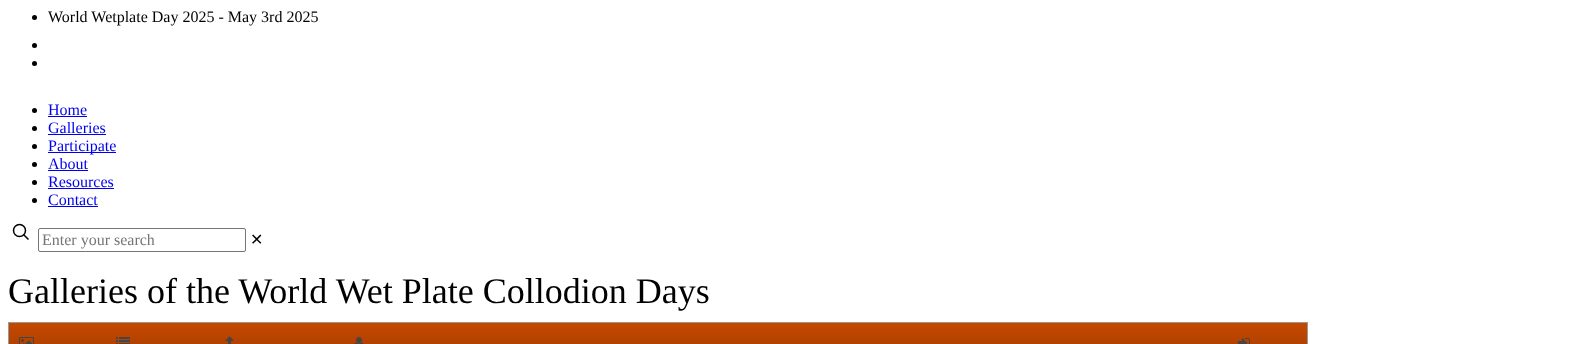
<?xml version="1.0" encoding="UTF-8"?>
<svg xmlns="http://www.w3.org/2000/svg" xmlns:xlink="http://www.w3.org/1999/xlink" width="1581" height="344">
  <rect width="100%" height="100%" fill="#ffffff" />
  <circle cx="34.5" cy="17.5" r="2.5" fill="#000000" />
  <circle cx="34.5" cy="45.5" r="2.5" fill="#000000" />
  <circle cx="34.5" cy="63.5" r="2.5" fill="#000000" />
  <circle cx="34.5" cy="110.5" r="2.5" fill="#000000" />
  <rect x="48" y="116" width="39" height="1" fill="#0000ee" />
  <circle cx="34.5" cy="128.5" r="2.5" fill="#000000" />
  <rect x="48" y="134" width="58" height="1" fill="#0000ee" />
  <circle cx="34.5" cy="146.5" r="2.5" fill="#000000" />
  <rect x="48" y="152" width="68" height="1" fill="#0000ee" />
  <circle cx="34.5" cy="164.5" r="2.5" fill="#000000" />
  <rect x="48" y="170" width="40" height="1" fill="#0000ee" />
  <circle cx="34.5" cy="182.5" r="2.5" fill="#000000" />
  <rect x="48" y="188" width="66" height="1" fill="#0000ee" />
  <circle cx="34.5" cy="200.5" r="2.5" fill="#000000" />
  <rect x="48" y="206" width="50" height="1" fill="#0000ee" />
  <circle cx="19.5" cy="230.5" r="6" fill="none" stroke="#000000" stroke-width="1.5" />
  <path d="M 23.5 234.5 l 5 5" fill="none" stroke="#000000" stroke-width="1.5" />
  <rect x="38.5" y="228.5" width="207" height="23" rx="1.5" fill="none" stroke="#767676" />
  <image x="9" y="323" width="1298" height="21" xlink:href="image1.png" />
  <rect x="8.5" y="322.5" width="1299" height="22" fill="none" stroke="#999999" />
  <image x="19" y="337" width="15" height="7" xlink:href="image2.png" />
  <image x="116" y="337" width="14" height="7" xlink:href="image3.png" />
  <image x="225" y="336" width="9" height="8" xlink:href="image4.png" />
  <image x="354" y="337" width="10" height="7" xlink:href="image5.png" />
  <image x="1238" y="338" width="12" height="6" xlink:href="image6.png" />
  <text x="48" y="22" style="font-family: Liberation Serif; font-size: 16px; fill: #000000">World Wetplate Day 2025 - May 3rd 2025</text>
  <text x="48" y="115" style="font-family: Liberation Serif; font-size: 16px; fill: #0000ee">Home</text>
  <text x="48" y="133" style="font-family: Liberation Serif; font-size: 16px; fill: #0000ee">Galleries</text>
  <text x="48" y="151" style="font-family: Liberation Serif; font-size: 16px; fill: #0000ee">Participate</text>
  <text x="48" y="169" style="font-family: Liberation Serif; font-size: 16px; fill: #0000ee">About</text>
  <text x="48" y="187" style="font-family: Liberation Serif; font-size: 16px; fill: #0000ee">Resources</text>
  <text x="48" y="205" style="font-family: Liberation Serif; font-size: 16px; fill: #0000ee">Contact</text>
  <text x="42" y="245" style="font-family: Liberation Serif; font-size: 16px; fill: #757575">Enter your search</text>
  <text x="250" y="245" style="font-family: DejaVu Sans; font-size: 16px; fill: #000000">✕</text>
  <text x="8" y="303" style="font-family: Liberation Serif; font-size: 36px; fill: #000000">Galleries of the World Wet Plate Collodion Days</text>
</svg>
